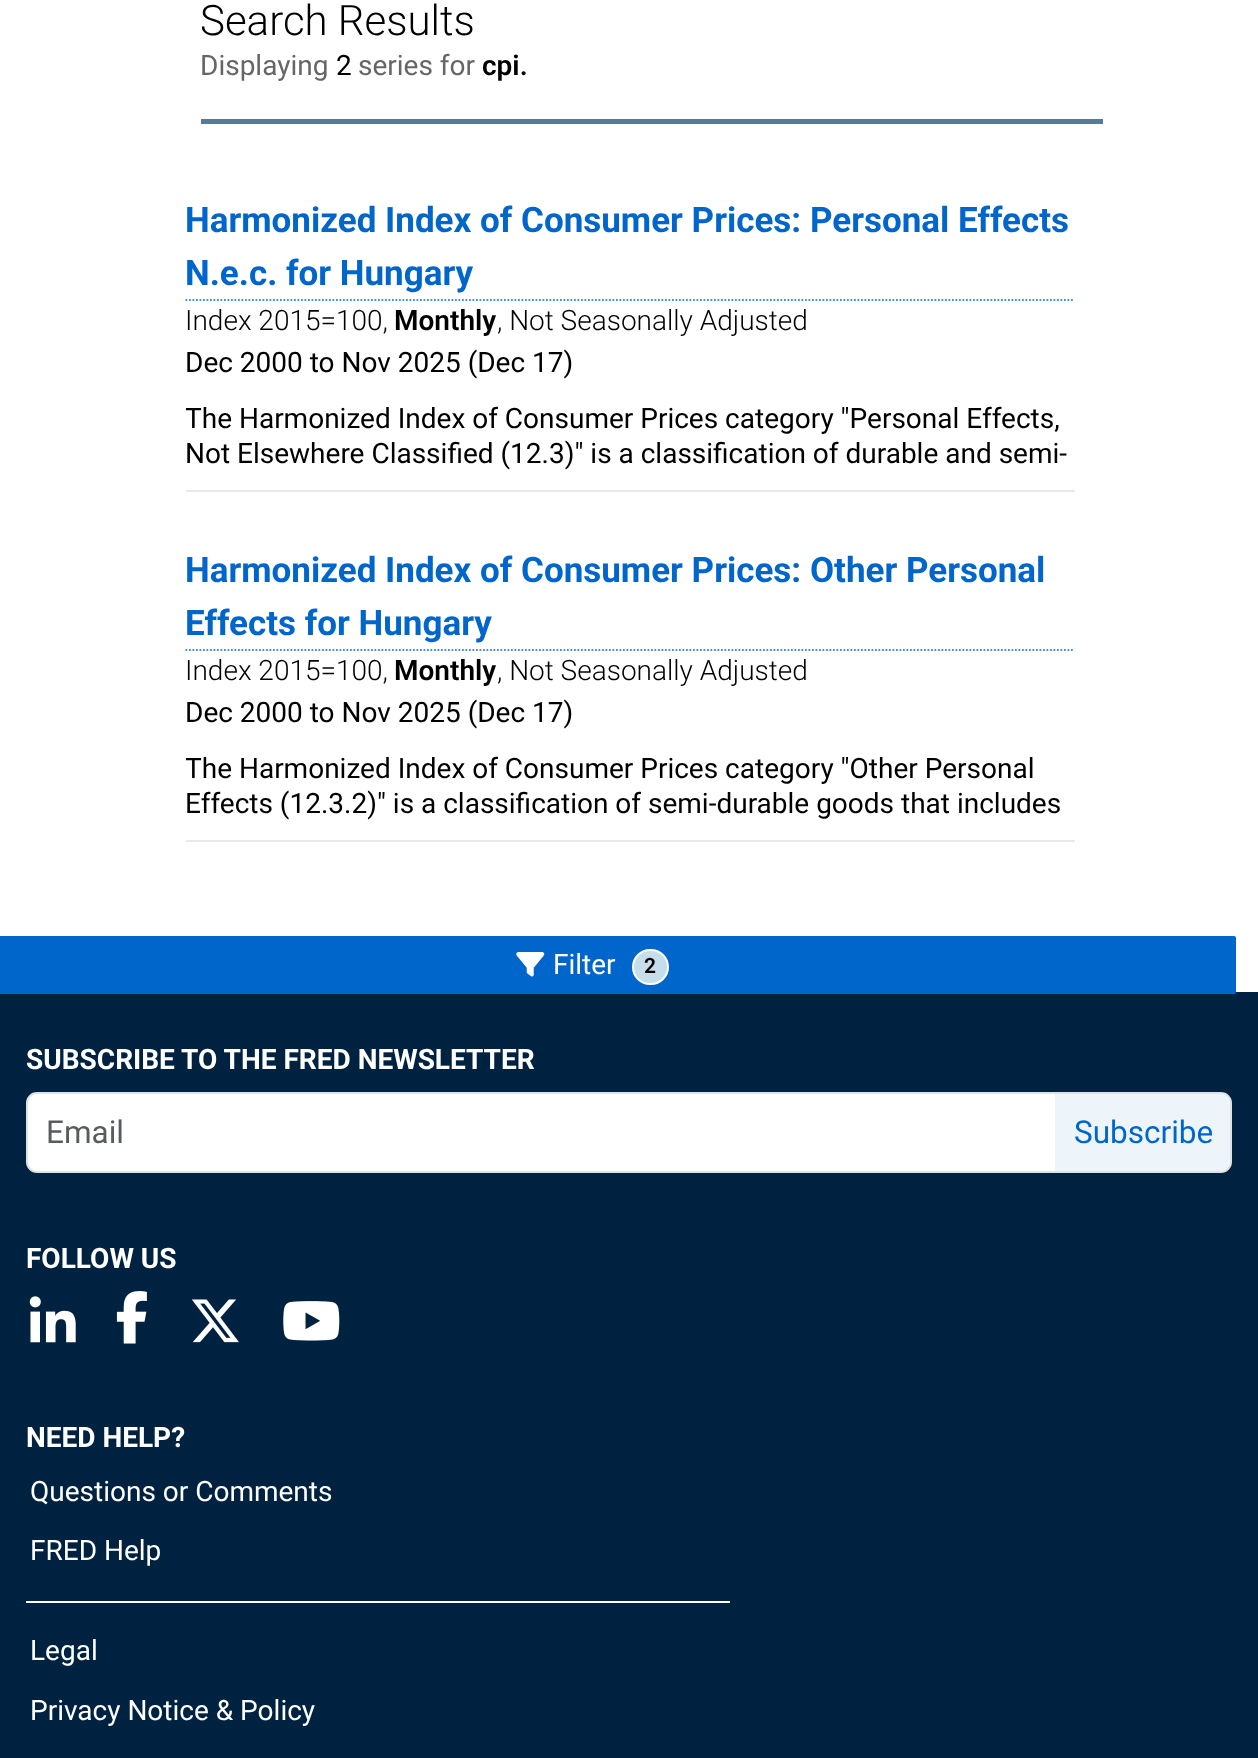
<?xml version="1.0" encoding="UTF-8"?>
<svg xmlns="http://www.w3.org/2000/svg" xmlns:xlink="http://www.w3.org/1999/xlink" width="1258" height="1758">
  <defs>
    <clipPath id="clip1"><rect x="186" y="403" width="889" height="70" /></clipPath>
    <clipPath id="clip2"><rect x="186" y="753" width="889" height="70" /></clipPath>
  </defs>
  <rect width="100%" height="100%" fill="#ffffff" />
  <rect x="201" y="119" width="902" height="5" fill="#557b97" />
  <rect x="186" y="490" width="889" height="2" fill="#e9e9e9" />
  <path d="M 185.5 300 h 889" fill="none" stroke="#3c92d5" stroke-width="1.8" stroke-dasharray="1.75 1.75" />
  <rect x="186" y="840" width="889" height="2" fill="#e9e9e9" />
  <path d="M 185.5 650 h 889" fill="none" stroke="#3c92d5" stroke-width="1.8" stroke-dasharray="1.75 1.75" />
  <rect y="992" width="1258" height="766" fill="#002241" />
  <rect x="-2" y="936" width="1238" height="58" rx="2" fill="#0066cc" />
  <image x="516" y="952" width="29" height="25" xlink:href="image1.png" />
  <rect x="633" y="950" width="35" height="34" rx="17" fill="#c6deeb" stroke="#ffffff" stroke-width="2" />
  <rect x="27" y="1093" width="1204" height="79" rx="10" fill="#ffffff" stroke="#dee2e6" stroke-width="2" />
  <path d="M 1055 1094 h 164 c 6 0 11 5 11 11 v 55 c 0 6 -5 11 -11 11 h -164 z" fill="#edf5fa" />
  <image x="29" y="1296" width="47" height="47" xlink:href="image2.png" />
  <image x="116" y="1291" width="31" height="53" xlink:href="image3.png" />
  <image x="191" y="1299" width="48" height="44" xlink:href="image4.png" />
  <image x="283" y="1301" width="57" height="40" xlink:href="image5.png" />
  <rect x="26" y="1601" width="704" height="2" fill="#ffffff" />
  <text x="200" y="35" style="font-family: Roboto; font-size: 42px; font-weight: 300; fill: #000000">Search Results</text>
  <text x="200" y="75" style="font-family: Roboto; font-size: 28px; fill: #666666">Displaying</text>
  <text x="336" y="75" style="font-family: Roboto; font-size: 28px; fill: #000000">2</text>
  <text x="358" y="75" style="font-family: Roboto; font-size: 28px; fill: #666666">series for</text>
  <text x="482" y="75" style="font-family: Roboto; font-size: 28px; font-weight: 600; fill: #000000">cpi.</text>
  <text x="185" y="232" style="font-family: Roboto; font-size: 35px; font-weight: bold; fill: #0066cc">Harmonized Index of Consumer Prices: Personal Effects</text>
  <text x="185" y="285" style="font-family: Roboto; font-size: 35px; font-weight: bold; fill: #0066cc">N.e.c. for Hungary</text>
  <text x="185" y="330" style="font-family: Roboto; font-size: 28px; font-weight: 300; fill: #000000">Index 2015=100,</text>
  <text x="394" y="330" style="font-family: Roboto; font-size: 28px; font-weight: 600; fill: #000000">Monthly</text>
  <text x="497" y="330" style="font-family: Roboto; font-size: 28px; font-weight: 300; fill: #000000">, Not Seasonally Adjusted</text>
  <text x="185" y="372" style="font-family: Roboto; font-size: 28px; fill: #000000">Dec 2000 to Nov 2025 (Dec 17)</text>
  <g clip-path="url(#clip1)">
    <text x="185" y="428" style="font-family: Roboto; font-size: 28px; fill: #000000">The Harmonized Index of Consumer Prices category "Personal Effects,</text>
  </g>
  <text x="185" y="463" style="font-family: Roboto; font-size: 28px; fill: #000000">Not Elsewhere Classified (12.3)" is a classification of durable and semi-</text>
  <text x="185" y="582" style="font-family: Roboto; font-size: 35px; font-weight: bold; fill: #0066cc">Harmonized Index of Consumer Prices: Other Personal</text>
  <text x="185" y="635" style="font-family: Roboto; font-size: 35px; font-weight: bold; fill: #0066cc">Effects for Hungary</text>
  <text x="185" y="680" style="font-family: Roboto; font-size: 28px; font-weight: 300; fill: #000000">Index 2015=100,</text>
  <text x="394" y="680" style="font-family: Roboto; font-size: 28px; font-weight: 600; fill: #000000">Monthly</text>
  <text x="497" y="680" style="font-family: Roboto; font-size: 28px; font-weight: 300; fill: #000000">, Not Seasonally Adjusted</text>
  <text x="185" y="722" style="font-family: Roboto; font-size: 28px; fill: #000000">Dec 2000 to Nov 2025 (Dec 17)</text>
  <g clip-path="url(#clip2)">
    <text x="185" y="778" style="font-family: Roboto; font-size: 28px; fill: #000000">The Harmonized Index of Consumer Prices category "Other Personal</text>
  </g>
  <text x="185" y="813" style="font-family: Roboto; font-size: 28px; fill: #000000">Effects (12.3.2)" is a classification of semi-durable goods that includes</text>
  <text x="553" y="974" style="font-family: Roboto; font-size: 28px; fill: #ffffff">Filter</text>
  <text x="644" y="973" style="font-family: Roboto; font-size: 21px; font-weight: 600; fill: #000000">2</text>
  <text x="26" y="1069" style="font-family: Roboto; font-size: 28px; font-weight: bold; fill: #ffffff">SUBSCRIBE TO THE FRED NEWSLETTER</text>
  <text x="46" y="1143" style="font-family: Roboto; font-size: 31.5px; fill: #595c5f">Email</text>
  <text x="1074" y="1143" style="font-family: Roboto; font-size: 31.5px; fill: #0066cc">Subscribe</text>
  <text x="26" y="1268" style="font-family: Roboto; font-size: 28px; font-weight: bold; fill: #ffffff">FOLLOW US</text>
  <text x="26" y="1447" style="font-family: Roboto; font-size: 28px; font-weight: bold; fill: #ffffff">NEED HELP?</text>
  <text x="30" y="1501" style="font-family: Roboto; font-size: 28px; fill: #ffffff">Questions or Comments</text>
  <text x="30" y="1560" style="font-family: Roboto; font-size: 28px; fill: #ffffff">FRED Help</text>
  <text x="30" y="1660" style="font-family: Roboto; font-size: 28px; fill: #ffffff">Legal</text>
  <text x="30" y="1720" style="font-family: Roboto; font-size: 28px; fill: #ffffff">Privacy Notice &amp; Policy</text>
</svg>
